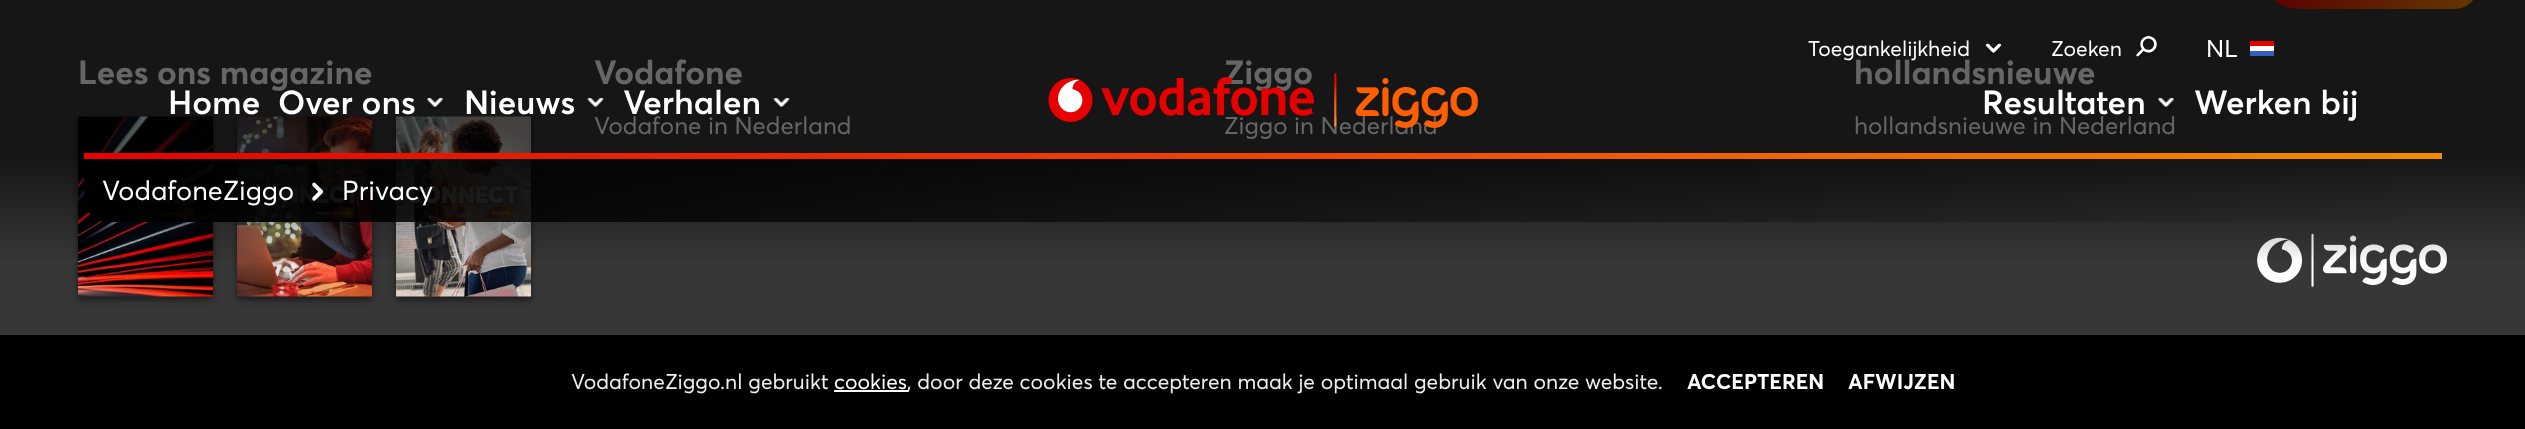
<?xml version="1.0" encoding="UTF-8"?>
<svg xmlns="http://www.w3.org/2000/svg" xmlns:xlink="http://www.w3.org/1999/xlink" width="2525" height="429">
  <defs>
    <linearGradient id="g1" gradientUnits="userSpaceOnUse" x1="2261" y1="-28" x2="2478" y2="-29"><stop offset="0" stop-color="#e60000" /><stop offset="1" stop-color="#f48c00" /></linearGradient>
    <linearGradient id="g2" gradientUnits="userSpaceOnUse" x1="1263" y1="0" x2="1263" y2="264"><stop offset="0.6" stop-color="#000000" stop-opacity="0.6" /><stop offset="1" stop-color="#000000" stop-opacity="0" /></linearGradient>
    <linearGradient id="g3" gradientUnits="userSpaceOnUse" x1="84" y1="156" x2="2442" y2="156"><stop offset="0" stop-color="#e60000" /><stop offset="1" stop-color="#f48c00" /></linearGradient>
    <linearGradient id="g4" gradientUnits="userSpaceOnUse" x1="84" y1="191" x2="2430" y2="190"><stop offset="0" stop-color="#000000" /><stop offset="1" stop-color="#000000" stop-opacity="0" /></linearGradient>
  </defs>
  <rect width="100%" height="100%" fill="#373737" />
  <path d="M 2298.5 -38 h 156.5 c 12.5 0 23 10.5 23 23 v 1 c 0 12.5 -10.5 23 -23 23 h -156.5 c -20.5 0 -37.5 -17 -37.5 -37.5 v 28 c 0 -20.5 17 -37.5 37.5 -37.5 z" fill="url(#g1)" />
  <rect x="78" y="120" width="135" height="180" fill="#000000" fill-opacity="0.5" filter="blur(3px)" />
  <image x="78" y="116" width="135" height="181" xlink:href="image7.png" />
  <rect x="237" y="120" width="135" height="180" fill="#000000" fill-opacity="0.5" filter="blur(3px)" />
  <image x="237" y="116" width="135" height="181" xlink:href="image8.png" />
  <rect x="396" y="120" width="135" height="180" fill="#000000" fill-opacity="0.5" filter="blur(3px)" />
  <image x="396" y="116" width="135" height="181" xlink:href="image9.png" />
  <image x="2257" y="233" width="190" height="54" xlink:href="image10.png" />
  <rect y="335" width="2525" height="94" fill="#000000" />
  <rect x="834" y="390" width="74" height="2" fill="#ffffff" />
  <text x="78" y="84" style="font-family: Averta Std; font-size: 33px; font-weight: bold; fill: #ffffff">Lees ons magazine</text>
  <text x="594" y="84" style="font-family: Averta Std; font-size: 33px; font-weight: bold; fill: #ffffff">Vodafone</text>
  <text x="594" y="134" style="font-family: Averta Std; font-size: 24px; fill: #ffffff">Vodafone in Nederland</text>
  <text x="1224" y="84" style="font-family: Averta Std; font-size: 33px; font-weight: bold; fill: #ffffff">Ziggo</text>
  <text x="1224" y="134" style="font-family: Averta Std; font-size: 24px; fill: #ffffff">Ziggo in Nederland</text>
  <text x="1854" y="84" style="font-family: Averta Std; font-size: 33px; font-weight: bold; fill: #ffffff">hollandsnieuwe</text>
  <text x="1854" y="134" style="font-family: Averta Std; font-size: 24px; fill: #ffffff">hollandsnieuwe in Nederland</text>
  <rect width="2525" height="260" fill="url(#g2)" />
  <rect x="2250" y="51" width="24" height="5" fill="#355cc1" />
  <rect x="2250" y="46" width="24" height="5" fill="#ffffff" />
  <rect x="2250" y="41" width="24" height="5" fill="#e60000" />
  <text x="2206" y="57" style="font-family: Averta Std; font-size: 24px; fill: #ffffff">NL</text>
  <image x="2136" y="36" width="21" height="21" xlink:href="image2.png" />
  <image x="1986" y="43" width="15" height="12" xlink:href="image1.png" />
  <text x="2051" y="56" style="font-family: Averta Std; font-size: 21px; fill: #ffffff">Zoeken</text>
  <text x="1808" y="56" style="font-family: Averta Std; font-size: 21px; fill: #ffffff">Toegankelijkheid</text>
  <text x="2194" y="114" style="font-family: Averta Std; font-size: 33px; font-weight: 600; fill: #ffffff">Werken bij</text>
  <image x="2158" y="98" width="16" height="11" xlink:href="image3.png" />
  <text x="1982" y="114" style="font-family: Averta Std; font-size: 33px; font-weight: 600; fill: #ffffff">Resultaten</text>
  <image x="1048" y="73" width="430" height="55" xlink:href="image5.png" />
  <image x="773" y="98" width="17" height="11" xlink:href="image4.png" />
  <text x="623" y="114" style="font-family: Averta Std; font-size: 33px; font-weight: 600; fill: #ffffff">Verhalen</text>
  <image x="587" y="98" width="17" height="11" xlink:href="image4.png" />
  <text x="464" y="114" style="font-family: Averta Std; font-size: 33px; font-weight: 600; fill: #ffffff">Nieuws</text>
  <image x="427" y="98" width="16" height="11" xlink:href="image3.png" />
  <text x="278" y="114" style="font-family: Averta Std; font-size: 33px; font-weight: 600; fill: #ffffff">Over ons</text>
  <text x="168" y="114" style="font-family: Averta Std; font-size: 33px; font-weight: 600; fill: #ffffff">Home</text>
  <rect x="84" y="153" width="2358" height="6" fill="url(#g3)" />
  <path d="M 84 159 h 2346 v 63 h -2323 c -12.5 0 -23 -10.5 -23 -23 z" fill="url(#g4)" />
  <image x="312" y="182" width="12" height="19" xlink:href="image6.png" />
  <text x="342" y="200" style="font-family: Averta Std; font-size: 27px; fill: #ffffff">Privacy</text>
  <text x="102" y="200" style="font-family: Averta Std; font-size: 27px; fill: #ffffff">VodafoneZiggo</text>
  <text x="571" y="389" style="font-family: Averta Std; font-size: 21px; fill: #eeeeee">VodafoneZiggo.nl gebruikt</text>
  <text x="834" y="389" style="font-family: Averta Std; font-size: 21px; fill: #ffffff">cookies</text>
  <text x="907" y="389" style="font-family: Averta Std; font-size: 21px; fill: #eeeeee">, door deze cookies te accepteren maak je optimaal gebruik van onze website.</text>
  <text x="1687" y="389" style="font-family: Averta Std; font-size: 21px; font-weight: bold; fill: #ffffff">ACCEPTEREN</text>
  <text x="1848" y="389" style="font-family: Averta Std; font-size: 21px; font-weight: bold; fill: #ffffff">AFWIJZEN</text>
</svg>
